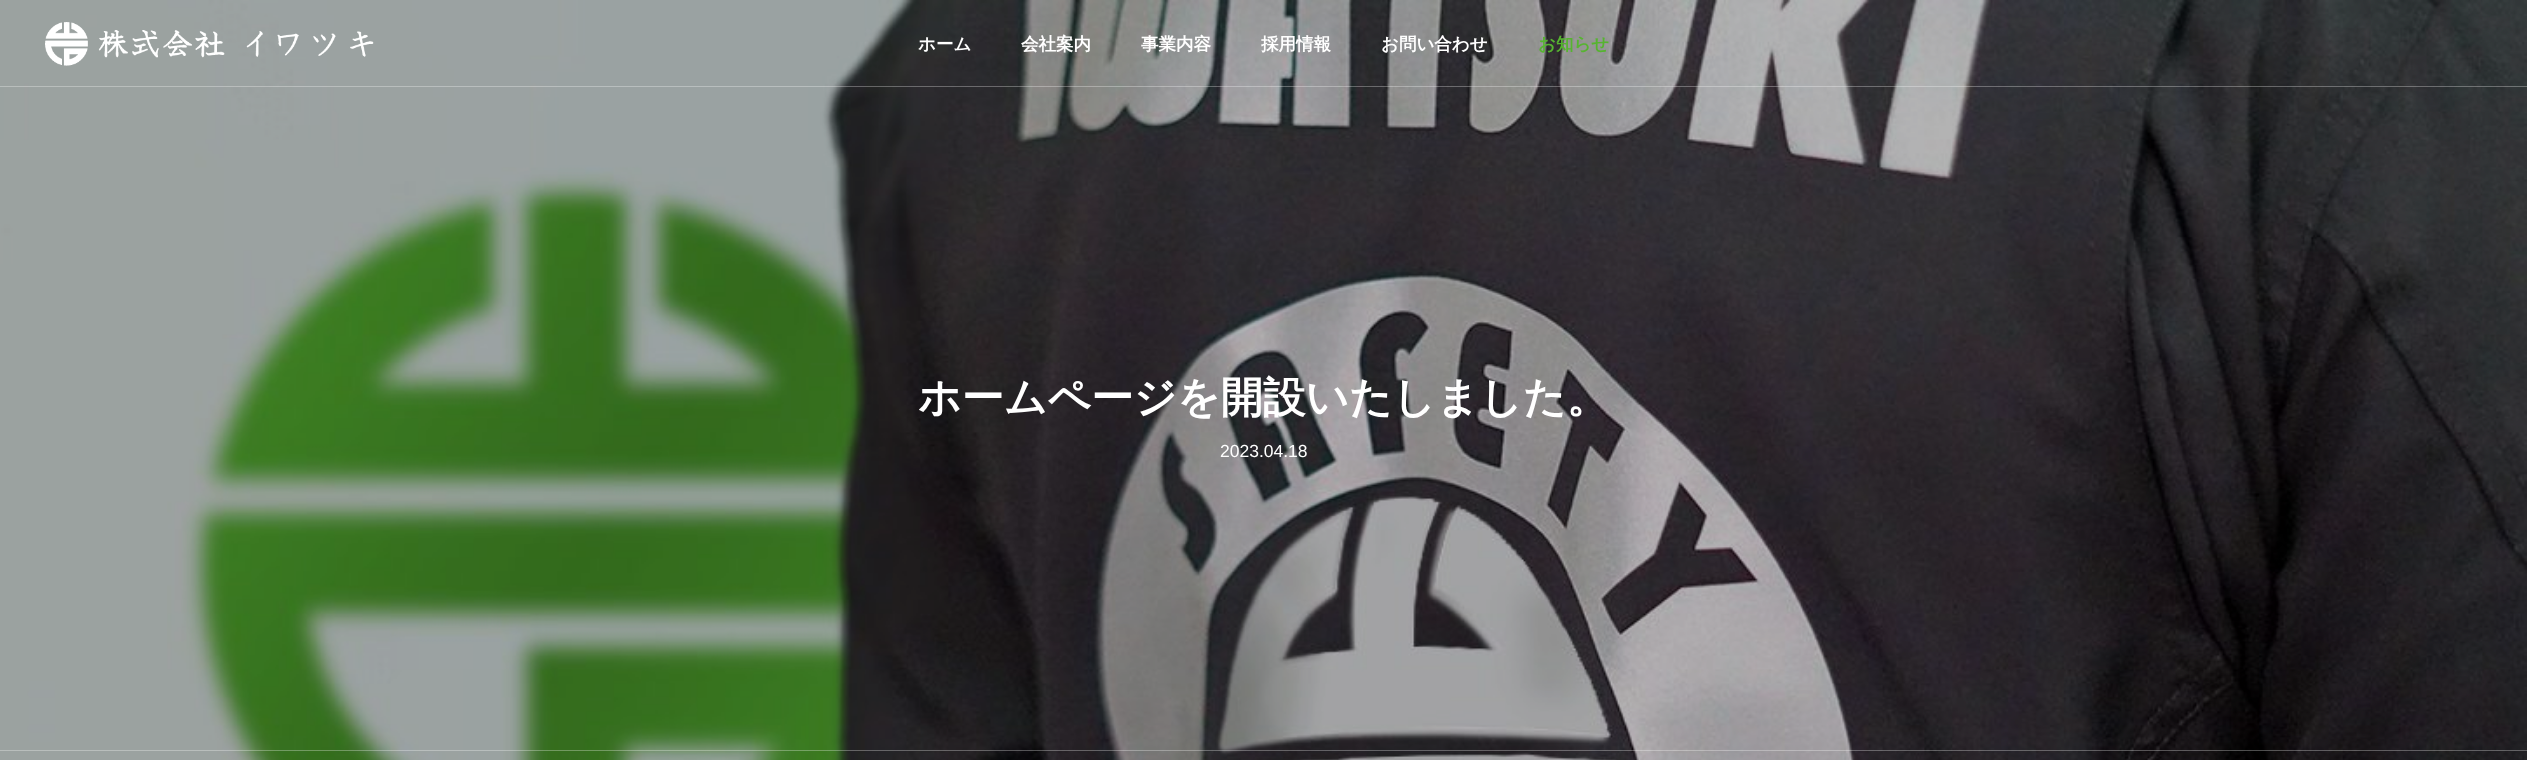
<?xml version="1.0" encoding="UTF-8"?>
<svg xmlns="http://www.w3.org/2000/svg" xmlns:xlink="http://www.w3.org/1999/xlink" width="2527" height="760">
  <rect width="100%" height="100%" fill="#ffffff" />
  <image x="0" y="0" width="2527" height="760" xlink:href="image2.png" />
  <rect y="86" width="2527" height="1" fill="#ffffff" fill-opacity="0.3" />
  <image x="45" y="22" width="329" height="44" xlink:href="image1.png" />
  <rect y="750" width="2527" height="1" fill="#ffffff" fill-opacity="0.3" />
  <text x="918" y="50" style="font-family: WenQuanYi Zen Hei; font-size: 17.5px; font-weight: bold; fill: #ffffff">ホーム</text>
  <text x="1021" y="50" style="font-family: WenQuanYi Zen Hei; font-size: 17.5px; font-weight: bold; fill: #ffffff">会社案内</text>
  <text x="1141" y="50" style="font-family: WenQuanYi Zen Hei; font-size: 17.5px; font-weight: bold; fill: #ffffff">事業内容</text>
  <text x="1261" y="50" style="font-family: WenQuanYi Zen Hei; font-size: 17.5px; font-weight: bold; fill: #ffffff">採用情報</text>
  <text x="1381" y="50" style="font-family: WenQuanYi Zen Hei; font-size: 17.5px; font-weight: bold; fill: #ffffff">お問い合わせ</text>
  <text x="1538" y="50" style="font-family: WenQuanYi Zen Hei; font-size: 17.5px; font-weight: bold; fill: #56b430">お知らせ</text>
  <text x="918" y="412" style="font-family: WenQuanYi Zen Hei; font-size: 42.5px; font-weight: bold; fill: #ffffff">ホームページを開設いたしました。</text>
  <text x="1220" y="457" style="font-family: Liberation Sans; font-size: 17.5px; fill: #ffffff">2023.04.18</text>
</svg>
